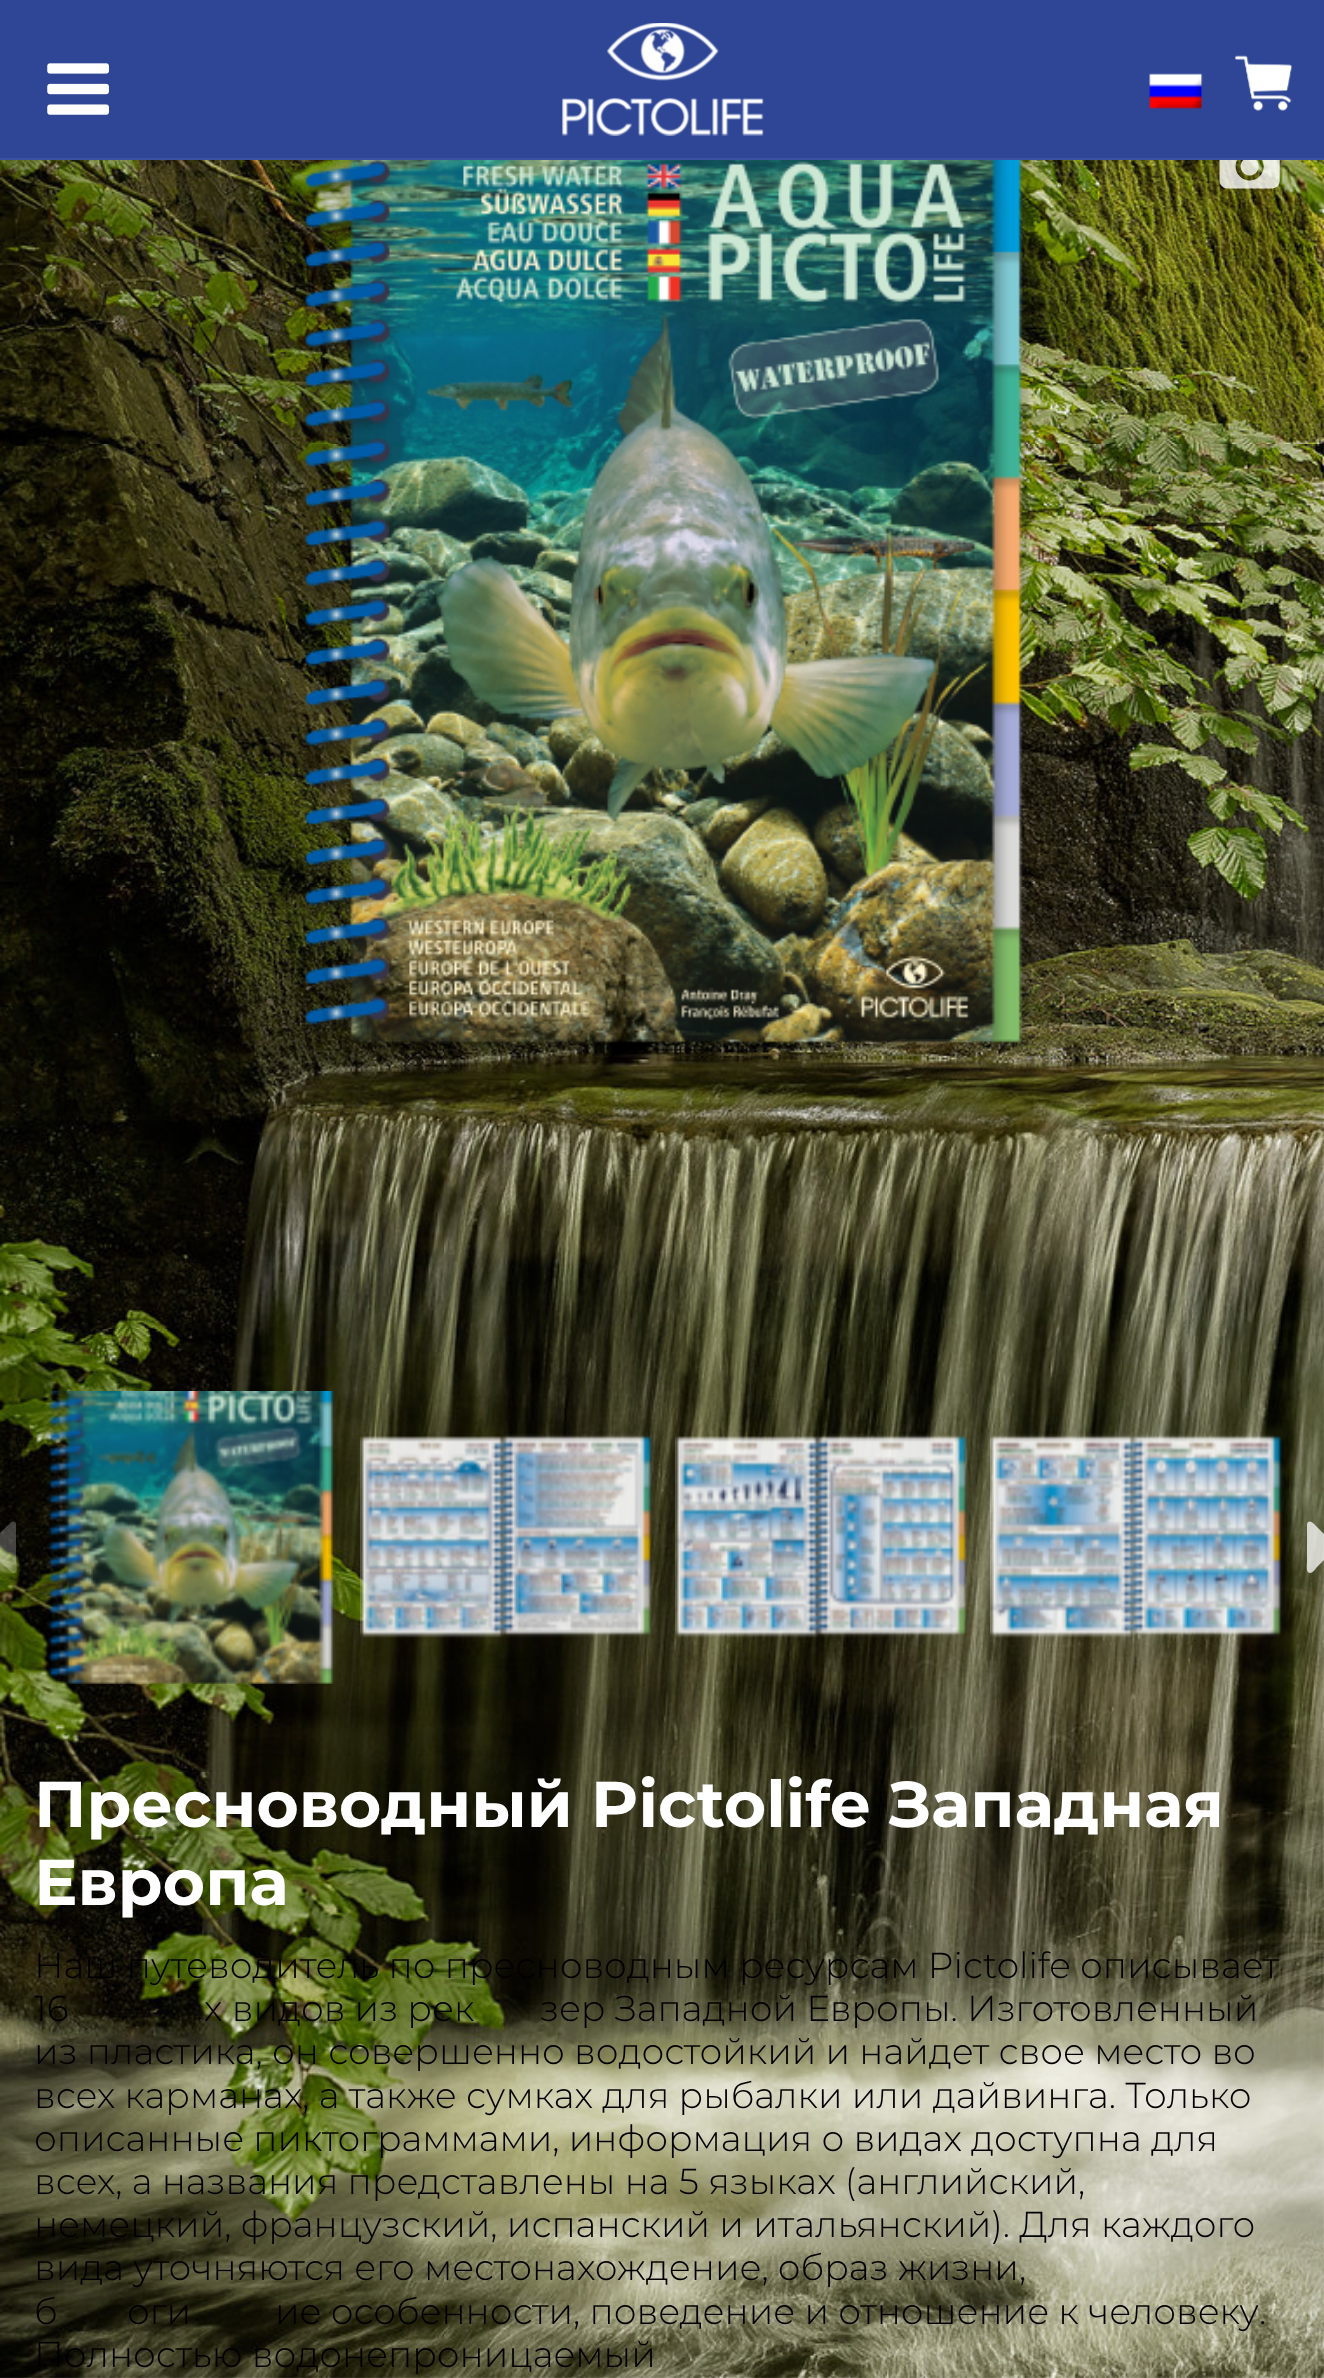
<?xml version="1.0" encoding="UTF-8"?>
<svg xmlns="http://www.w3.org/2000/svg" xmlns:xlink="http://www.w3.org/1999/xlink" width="1324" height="2378">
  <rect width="100%" height="100%" fill="#ffffff" />
  <image x="0" y="160" width="1324" height="2218" xlink:href="image1.png" />
  <rect width="1324" height="158" fill="#2f4696" />
  <rect y="158" width="1324" height="2" fill="#3a52a3" />
  <image x="47" y="63" width="62" height="52" xlink:href="image2.png" />
  <image x="562" y="23" width="202" height="113" xlink:href="image3.png" />
  <image x="1149" y="73" width="54" height="36" xlink:href="image4.png" />
  <image x="1235" y="55" width="57" height="56" xlink:href="image5.png" />
  <image x="301" y="160" width="730" height="896" xlink:href="image6.png" />
  <image x="1219" y="160" width="61" height="29" xlink:href="image7.png" />
  <path d="M 16 1525 v 37 c 0 2 2 9 -1 11 c -3 1 -6 -3 -8 -5 l -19 -18 c -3 -3 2 -7 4 -9 l 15 -15 c 2 -1 5 -6 8 -4 c 1 1 1 2 1 3 z" fill="#ffffff" fill-opacity="0.25" />
  <image x="47" y="1391" width="290" height="293" xlink:href="image8.png" />
  <image x="360" y="1434" width="293" height="204" xlink:href="image9.png" />
  <image x="675" y="1434" width="293" height="204" xlink:href="image10.png" />
  <image x="990" y="1434" width="293" height="204" xlink:href="image11.png" />
  <path d="M 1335 1545 c 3 3 -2 7 -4 8 l -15 15 c -1 2 -5 7 -8 4 c -2 -2 -1 -9 -1 -10 v -38 c 2 -6 8 1 9 2 z" fill="#ffffff" fill-opacity="0.75" />
  <text x="34" y="1827" style="font-family: Montserrat; font-size: 64.75px; font-weight: bold; fill: #ffffff">Пресноводный Pictolife Западная</text>
  <text x="34" y="1905" style="font-family: Montserrat; font-size: 64.75px; font-weight: bold; fill: #ffffff">Европа</text>
  <text x="34" y="1978" style="font-family: Montserrat; font-size: 36px; font-weight: 300; fill: #000000">Наш путеводитель по пресноводным ресурсам Pictolife описывает</text>
  <text x="34" y="2021" style="font-family: Montserrat; font-size: 36px; font-weight: 300; fill: #000000">16</text>
  <text x="204" y="2021" style="font-family: Montserrat; font-size: 36px; font-weight: 300; fill: #000000">х видов из рек</text>
  <text x="540" y="2021" style="font-family: Montserrat; font-size: 36px; font-weight: 300; fill: #000000">зер Западной Европы. Изготовленный</text>
  <text x="34" y="2064" style="font-family: Montserrat; font-size: 36px; font-weight: 300; fill: #000000">из пластика, он совершенно водостойкий и найдет свое место во</text>
  <text x="34" y="2108" style="font-family: Montserrat; font-size: 36px; font-weight: 300; fill: #000000">всех карманах, а также сумках для рыбалки или дайвинга. Только</text>
  <text x="34" y="2151" style="font-family: Montserrat; font-size: 36px; font-weight: 300; fill: #000000">описанные пиктограммами, информация о видах доступна для</text>
  <text x="34" y="2194" style="font-family: Montserrat; font-size: 36px; font-weight: 300; fill: #000000">всех, а названия представлены на 5 языках (английский,</text>
  <text x="34" y="2237" style="font-family: Montserrat; font-size: 36px; font-weight: 300; fill: #000000">немецкий, французский, испанский и итальянский). Для каждого</text>
  <text x="34" y="2280" style="font-family: Montserrat; font-size: 36px; font-weight: 300; fill: #000000">вида уточняются его местонахождение, образ жизни,</text>
  <text x="34" y="2324" style="font-family: Montserrat; font-size: 36px; font-weight: 300; fill: #000000">б</text>
  <text x="127" y="2324" style="font-family: Montserrat; font-size: 36px; font-weight: 300; fill: #000000">оги</text>
  <text x="275" y="2324" style="font-family: Montserrat; font-size: 36px; font-weight: 300; fill: #000000">ие особенности, поведение и отношение к человеку.</text>
  <text x="34" y="2367" style="font-family: Montserrat; font-size: 36px; font-weight: 300; fill: #000000">Полностью водонепроницаемый</text>
</svg>
